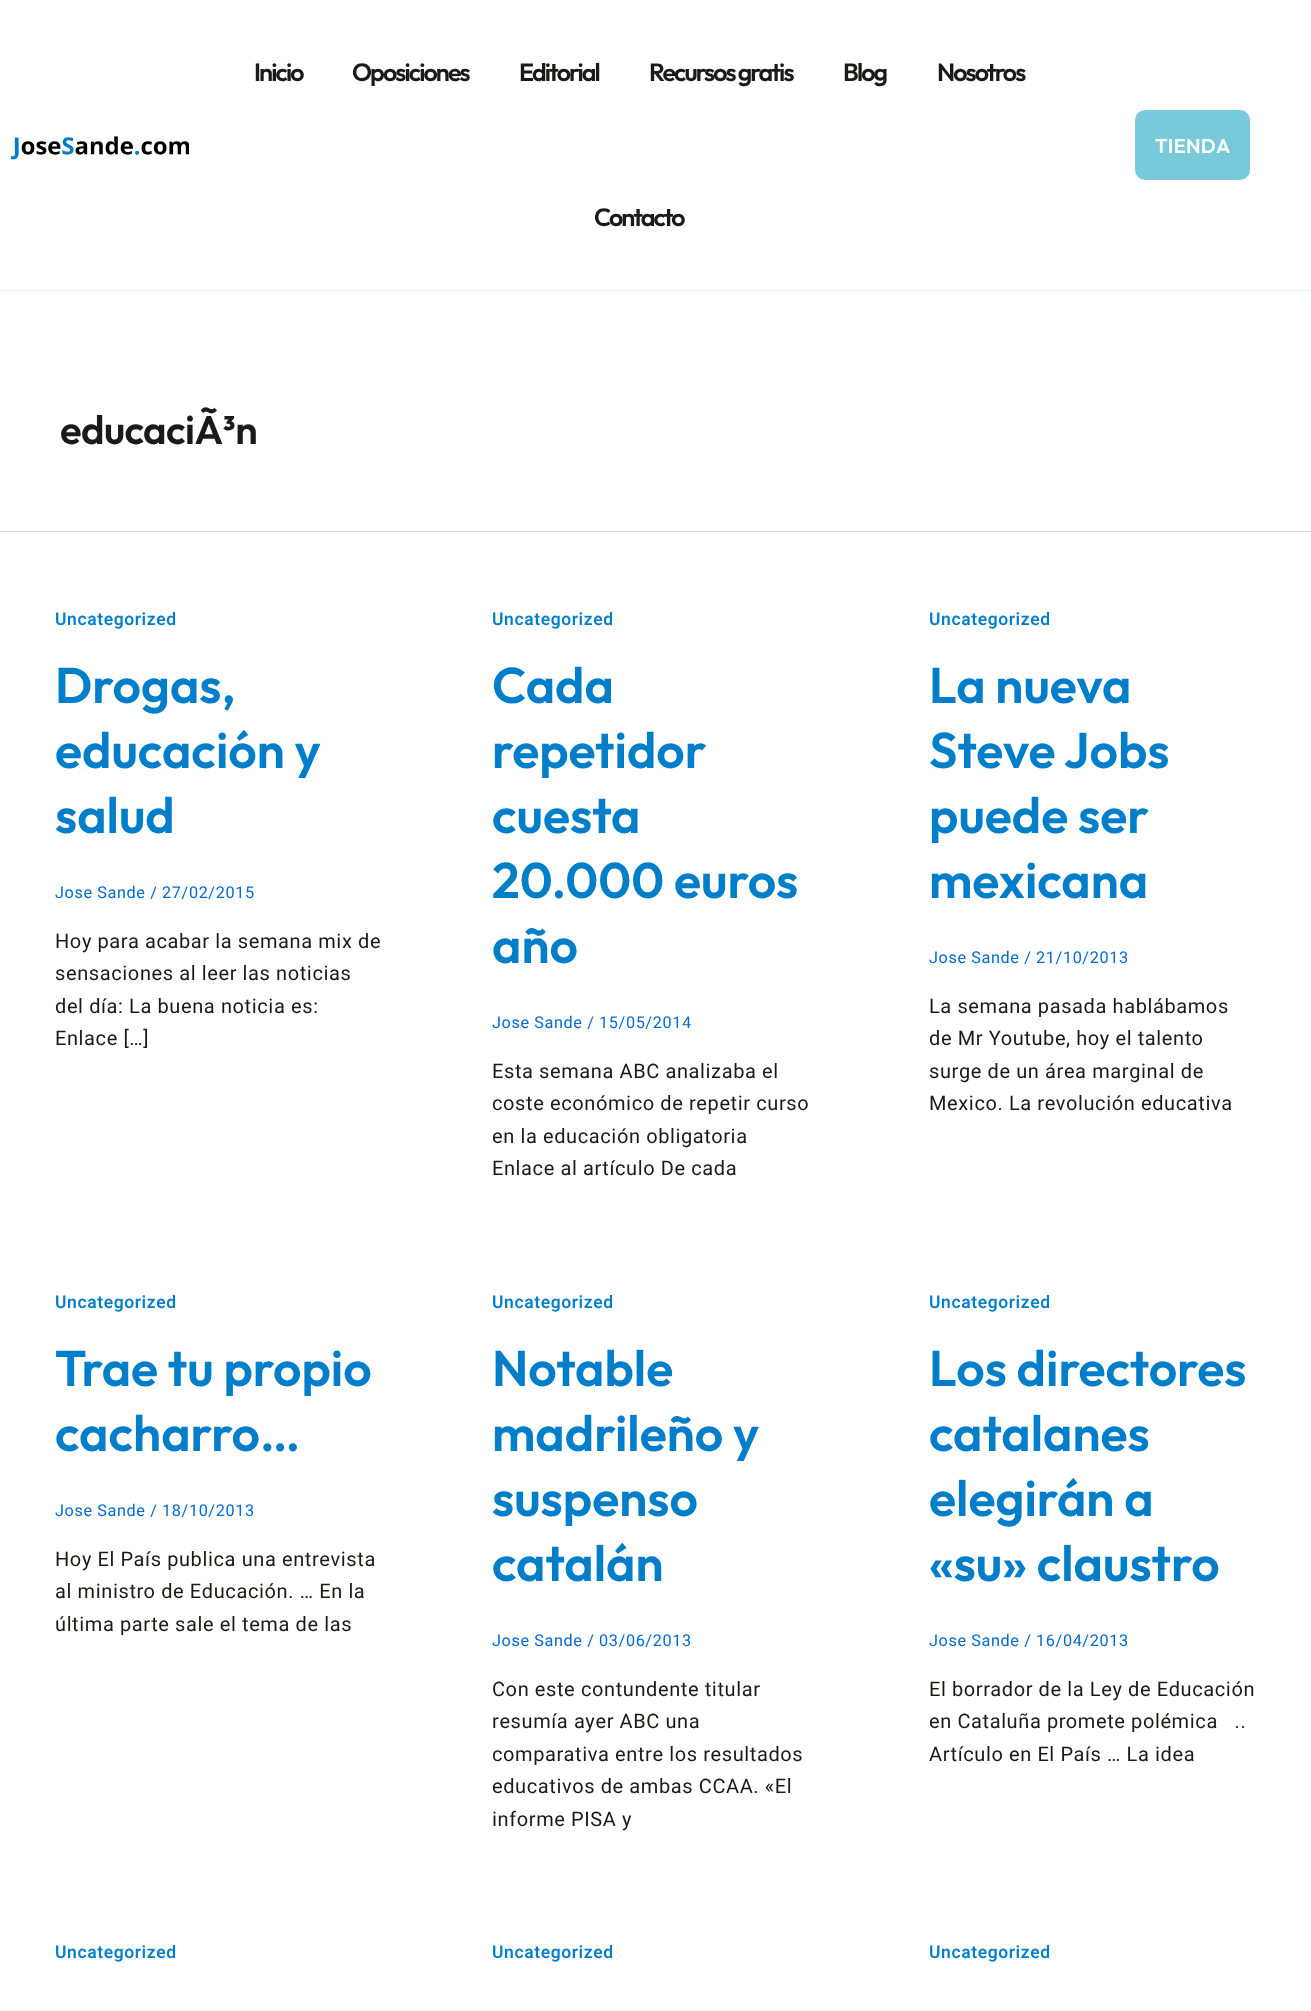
<?xml version="1.0" encoding="UTF-8"?>
<svg xmlns="http://www.w3.org/2000/svg" xmlns:xlink="http://www.w3.org/1999/xlink" width="1311" height="2011">
  <rect width="100%" height="100%" fill="#ffffff" />
  <rect y="290" width="1311" height="1" fill="#eaeef5" />
  <image x="10" y="136" width="180" height="24" xlink:href="image1.png" />
  <rect x="1135" y="110" width="115" height="70" rx="10" fill="#78cada" />
  <rect y="531" width="1311" height="1" fill="#d1d5db" />
  <text x="254" y="81" style="font-family: Outfit; font-size: 25px; font-weight: 600; letter-spacing: -1.9px; fill: #1b1a17">Inicio</text>
  <text x="352" y="81" style="font-family: Outfit; font-size: 25px; font-weight: 600; letter-spacing: -1.9px; fill: #1b1a17">Oposiciones</text>
  <text x="519" y="81" style="font-family: Outfit; font-size: 25px; font-weight: 600; letter-spacing: -1.9px; fill: #1b1a17">Editorial</text>
  <text x="649" y="81" style="font-family: Outfit; font-size: 25px; font-weight: 600; letter-spacing: -1.9px; fill: #1b1a17">Recursos gratis</text>
  <text x="843" y="81" style="font-family: Outfit; font-size: 25px; font-weight: 600; letter-spacing: -1.9px; fill: #1b1a17">Blog</text>
  <text x="937" y="81" style="font-family: Outfit; font-size: 25px; font-weight: 600; letter-spacing: -1.9px; fill: #1b1a17">Nosotros</text>
  <text x="594" y="226" style="font-family: Outfit; font-size: 25px; font-weight: 600; letter-spacing: -1.9px; fill: #1b1a17">Contacto</text>
  <text x="1155" y="153" style="font-family: Outfit; font-size: 20px; font-weight: 600; letter-spacing: 0.25px; fill: #ffffff">TIENDA</text>
  <text x="60" y="444" style="font-family: Outfit; font-size: 40px; font-weight: 600; letter-spacing: -0.6px; fill: #1b1a17">educaciÃ³n</text>
  <text x="55" y="625" style="font-family: Heebo; font-size: 17.5px; font-weight: 600; letter-spacing: 0.6px; fill: #007eca">Uncategorized</text>
  <text x="55" y="703" style="font-family: Outfit; font-size: 50px; font-weight: 600; fill: #007eca">Drogas,</text>
  <text x="55" y="768" style="font-family: Outfit; font-size: 50px; font-weight: 600; fill: #007eca">educación y</text>
  <text x="55" y="833" style="font-family: Outfit; font-size: 50px; font-weight: 600; fill: #007eca">salud</text>
  <text x="55" y="898" style="font-family: Heebo; font-size: 16.25px; letter-spacing: 0.6px; fill: #046bd2">Jose Sande / 27/02/2015</text>
  <text x="55" y="948" style="font-family: Heebo; font-size: 20px; letter-spacing: 0.6px; fill: #1b1a17">Hoy para acabar la semana mix de</text>
  <text x="55" y="980" style="font-family: Heebo; font-size: 20px; letter-spacing: 0.6px; fill: #1b1a17">sensaciones al leer las noticias</text>
  <text x="55" y="1013" style="font-family: Heebo; font-size: 20px; letter-spacing: 0.6px; fill: #1b1a17">del día: La buena noticia es:</text>
  <text x="55" y="1045" style="font-family: Heebo; font-size: 20px; letter-spacing: 0.6px; fill: #1b1a17">Enlace […]</text>
  <text x="492" y="625" style="font-family: Heebo; font-size: 17.5px; font-weight: 600; letter-spacing: 0.6px; fill: #007eca">Uncategorized</text>
  <text x="492" y="703" style="font-family: Outfit; font-size: 50px; font-weight: 600; fill: #007eca">Cada</text>
  <text x="492" y="768" style="font-family: Outfit; font-size: 50px; font-weight: 600; fill: #007eca">repetidor</text>
  <text x="492" y="833" style="font-family: Outfit; font-size: 50px; font-weight: 600; fill: #007eca">cuesta</text>
  <text x="492" y="898" style="font-family: Outfit; font-size: 50px; font-weight: 600; fill: #007eca">20.000 euros</text>
  <text x="492" y="963" style="font-family: Outfit; font-size: 50px; font-weight: 600; fill: #007eca">año</text>
  <text x="492" y="1028" style="font-family: Heebo; font-size: 16.25px; letter-spacing: 0.6px; fill: #046bd2">Jose Sande / 15/05/2014</text>
  <text x="492" y="1078" style="font-family: Heebo; font-size: 20px; letter-spacing: 0.6px; fill: #1b1a17">Esta semana ABC analizaba el</text>
  <text x="492" y="1110" style="font-family: Heebo; font-size: 20px; letter-spacing: 0.6px; fill: #1b1a17">coste económico de repetir curso</text>
  <text x="492" y="1143" style="font-family: Heebo; font-size: 20px; letter-spacing: 0.6px; fill: #1b1a17">en la educación obligatoria</text>
  <text x="492" y="1175" style="font-family: Heebo; font-size: 20px; letter-spacing: 0.6px; fill: #1b1a17">Enlace al artículo De cada</text>
  <text x="929" y="625" style="font-family: Heebo; font-size: 17.5px; font-weight: 600; letter-spacing: 0.6px; fill: #007eca">Uncategorized</text>
  <text x="929" y="703" style="font-family: Outfit; font-size: 50px; font-weight: 600; fill: #007eca">La nueva</text>
  <text x="929" y="768" style="font-family: Outfit; font-size: 50px; font-weight: 600; fill: #007eca">Steve Jobs</text>
  <text x="929" y="833" style="font-family: Outfit; font-size: 50px; font-weight: 600; fill: #007eca">puede ser</text>
  <text x="929" y="898" style="font-family: Outfit; font-size: 50px; font-weight: 600; fill: #007eca">mexicana</text>
  <text x="929" y="963" style="font-family: Heebo; font-size: 16.25px; letter-spacing: 0.6px; fill: #046bd2">Jose Sande / 21/10/2013</text>
  <text x="929" y="1013" style="font-family: Heebo; font-size: 20px; letter-spacing: 0.6px; fill: #1b1a17">La semana pasada hablábamos</text>
  <text x="929" y="1045" style="font-family: Heebo; font-size: 20px; letter-spacing: 0.6px; fill: #1b1a17">de Mr Youtube, hoy el talento</text>
  <text x="929" y="1078" style="font-family: Heebo; font-size: 20px; letter-spacing: 0.6px; fill: #1b1a17">surge de un área marginal de</text>
  <text x="929" y="1110" style="font-family: Heebo; font-size: 20px; letter-spacing: 0.6px; fill: #1b1a17">Mexico. La revolución educativa</text>
  <text x="55" y="1308" style="font-family: Heebo; font-size: 17.5px; font-weight: 600; letter-spacing: 0.6px; fill: #007eca">Uncategorized</text>
  <text x="55" y="1386" style="font-family: Outfit; font-size: 50px; font-weight: 600; fill: #007eca">Trae tu propio</text>
  <text x="55" y="1451" style="font-family: Outfit; font-size: 50px; font-weight: 600; fill: #007eca">cacharro…</text>
  <text x="55" y="1516" style="font-family: Heebo; font-size: 16.25px; letter-spacing: 0.6px; fill: #046bd2">Jose Sande / 18/10/2013</text>
  <text x="55" y="1566" style="font-family: Heebo; font-size: 20px; letter-spacing: 0.6px; fill: #1b1a17">Hoy El País publica una entrevista</text>
  <text x="55" y="1598" style="font-family: Heebo; font-size: 20px; letter-spacing: 0.6px; fill: #1b1a17">al ministro de Educación. … En la</text>
  <text x="55" y="1631" style="font-family: Heebo; font-size: 20px; letter-spacing: 0.6px; fill: #1b1a17">última parte sale el tema de las</text>
  <text x="492" y="1308" style="font-family: Heebo; font-size: 17.5px; font-weight: 600; letter-spacing: 0.6px; fill: #007eca">Uncategorized</text>
  <text x="492" y="1386" style="font-family: Outfit; font-size: 50px; font-weight: 600; fill: #007eca">Notable</text>
  <text x="492" y="1451" style="font-family: Outfit; font-size: 50px; font-weight: 600; fill: #007eca">madrileño y</text>
  <text x="492" y="1516" style="font-family: Outfit; font-size: 50px; font-weight: 600; fill: #007eca">suspenso</text>
  <text x="492" y="1581" style="font-family: Outfit; font-size: 50px; font-weight: 600; fill: #007eca">catalán</text>
  <text x="492" y="1646" style="font-family: Heebo; font-size: 16.25px; letter-spacing: 0.6px; fill: #046bd2">Jose Sande / 03/06/2013</text>
  <text x="492" y="1696" style="font-family: Heebo; font-size: 20px; letter-spacing: 0.6px; fill: #1b1a17">Con este contundente titular</text>
  <text x="492" y="1728" style="font-family: Heebo; font-size: 20px; letter-spacing: 0.6px; fill: #1b1a17">resumía ayer ABC una</text>
  <text x="492" y="1761" style="font-family: Heebo; font-size: 20px; letter-spacing: 0.6px; fill: #1b1a17">comparativa entre los resultados</text>
  <text x="492" y="1793" style="font-family: Heebo; font-size: 20px; letter-spacing: 0.6px; fill: #1b1a17">educativos de ambas CCAA. «El</text>
  <text x="492" y="1826" style="font-family: Heebo; font-size: 20px; letter-spacing: 0.6px; fill: #1b1a17">informe PISA y</text>
  <text x="929" y="1308" style="font-family: Heebo; font-size: 17.5px; font-weight: 600; letter-spacing: 0.6px; fill: #007eca">Uncategorized</text>
  <text x="929" y="1386" style="font-family: Outfit; font-size: 50px; font-weight: 600; fill: #007eca">Los directores</text>
  <text x="929" y="1451" style="font-family: Outfit; font-size: 50px; font-weight: 600; fill: #007eca">catalanes</text>
  <text x="929" y="1516" style="font-family: Outfit; font-size: 50px; font-weight: 600; fill: #007eca">elegirán a</text>
  <text x="929" y="1581" style="font-family: Outfit; font-size: 50px; font-weight: 600; fill: #007eca">«su» claustro</text>
  <text x="929" y="1646" style="font-family: Heebo; font-size: 16.25px; letter-spacing: 0.6px; fill: #046bd2">Jose Sande / 16/04/2013</text>
  <text x="929" y="1696" style="font-family: Heebo; font-size: 20px; letter-spacing: 0.6px; fill: #1b1a17">El borrador de la Ley de Educación</text>
  <text x="929" y="1728" style="font-family: Heebo; font-size: 20px; letter-spacing: 0.6px; fill: #1b1a17" xml:space="preserve">en Cataluña promete polémica   ..</text>
  <text x="929" y="1761" style="font-family: Heebo; font-size: 20px; letter-spacing: 0.6px; fill: #1b1a17">Artículo en El País … La idea</text>
  <text x="55" y="1958" style="font-family: Heebo; font-size: 17.5px; font-weight: 600; letter-spacing: 0.6px; fill: #007eca">Uncategorized</text>
  <text x="492" y="1958" style="font-family: Heebo; font-size: 17.5px; font-weight: 600; letter-spacing: 0.6px; fill: #007eca">Uncategorized</text>
  <text x="929" y="1958" style="font-family: Heebo; font-size: 17.5px; font-weight: 600; letter-spacing: 0.6px; fill: #007eca">Uncategorized</text>
</svg>
